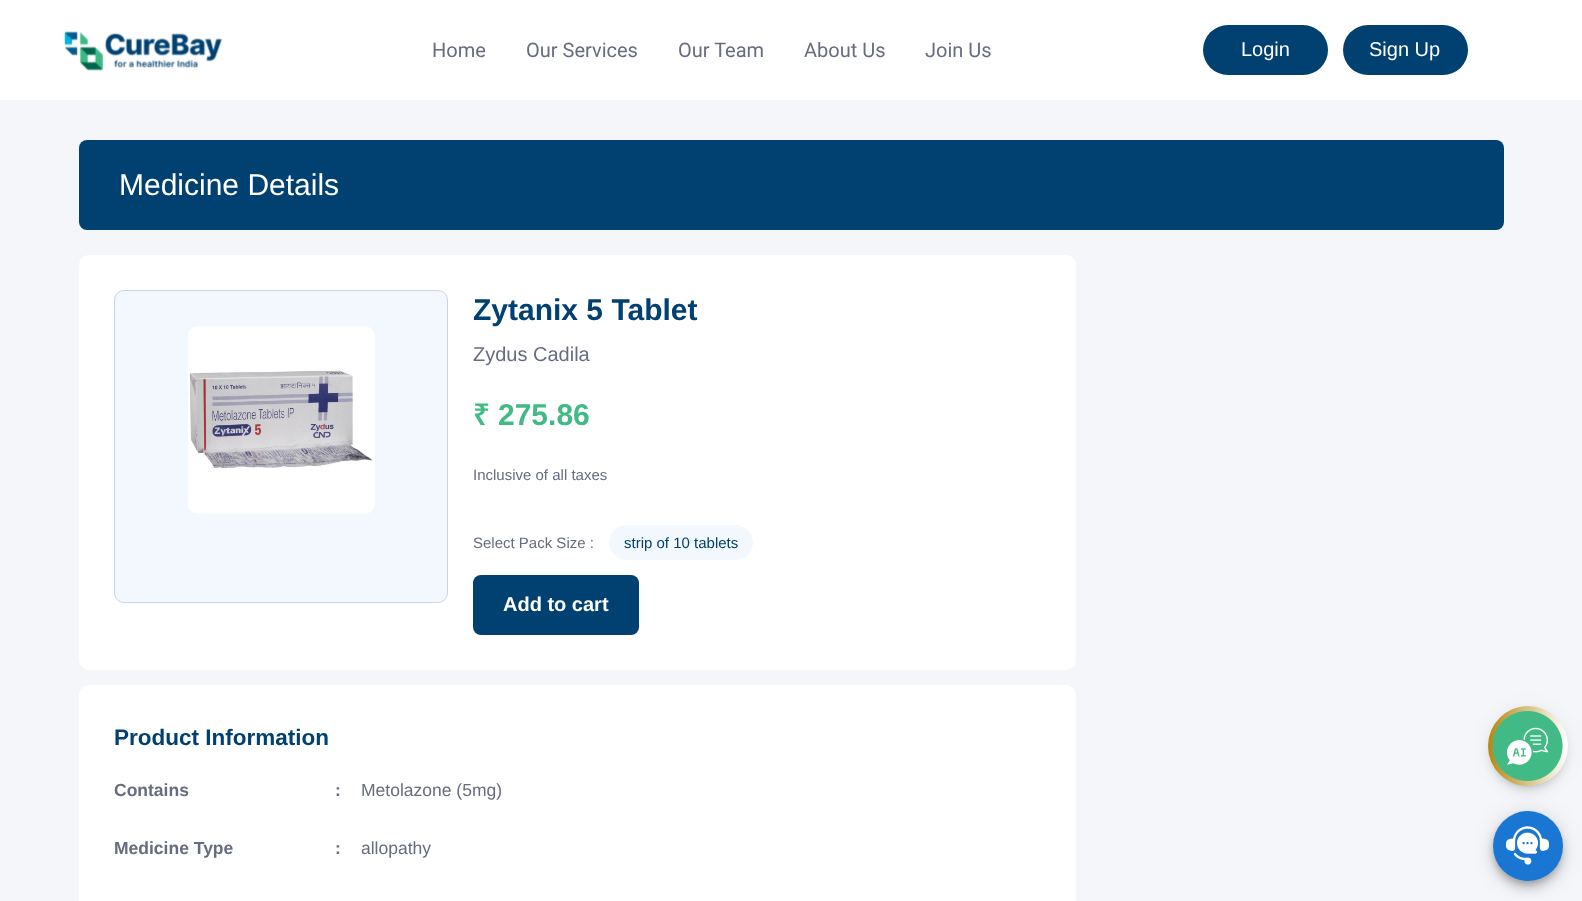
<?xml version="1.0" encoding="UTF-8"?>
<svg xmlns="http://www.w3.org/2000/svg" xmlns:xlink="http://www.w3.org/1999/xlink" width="1582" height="901">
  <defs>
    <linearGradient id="g1" gradientUnits="userSpaceOnUse" x1="1488" y1="746" x2="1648" y2="746"><stop offset="0" stop-color="#b48811" /><stop offset="0.5" stop-color="#ffffff" /><stop offset="1" stop-color="#b48811" /></linearGradient>
  </defs>
  <rect width="100%" height="100%" fill="#ffffff" />
  <image x="64" y="31" width="159" height="40" xlink:href="image1.png" />
  <rect x="1203" y="25" width="125" height="50" rx="25" fill="#004171" />
  <rect x="1343" y="25" width="125" height="50" rx="25" fill="#004171" />
  <rect y="100" width="1582" height="801" fill="#f5f6fa" />
  <rect x="79" y="140" width="1425" height="90" rx="8" fill="#004171" />
  <rect x="79" y="255" width="997" height="415" rx="10" fill="#ffffff" />
  <rect x="114.5" y="290.5" width="333" height="312" rx="9.5" fill="#f3f8ff" stroke="#cbd5e1" />
  <image x="188" y="326" width="187" height="188" xlink:href="image2.png" />
  <rect x="609" y="525" width="144" height="35" rx="17.5" fill="#f3f8ff" />
  <rect x="473" y="575" width="166" height="60" rx="8" fill="#004171" />
  <rect x="79" y="685" width="997" height="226" rx="10" fill="#ffffff" />
  <rect x="1493" y="813" width="70" height="70" rx="35" fill="#000000" fill-opacity="0.12" filter="blur(11px)" />
  <rect x="1493" y="819" width="70" height="70" rx="35" fill="#000000" fill-opacity="0.14" filter="blur(6px)" />
  <rect x="1494" y="816" width="67" height="68" rx="33.5" fill="#000000" fill-opacity="0.2" filter="blur(3px)" />
  <circle cx="1528" cy="846" r="35" fill="#1976d2" />
  <rect x="1493" y="713" width="70" height="70" rx="35" fill="#000000" fill-opacity="0.12" filter="blur(11px)" />
  <rect x="1493" y="719" width="70" height="70" rx="35" fill="#000000" fill-opacity="0.14" filter="blur(6px)" />
  <rect x="1494" y="716" width="67" height="68" rx="33.5" fill="#000000" fill-opacity="0.2" filter="blur(3px)" />
  <circle cx="1528" cy="746" r="40" fill="url(#g1)" />
  <image x="1493" y="711" width="70" height="70" xlink:href="image3.png" />
  <image x="1506" y="826" width="43" height="39" xlink:href="image4.png" />
  <text x="432" y="57" style="font-family: Roboto; font-size: 20px; fill: #676c80">Home</text>
  <text x="526" y="57" style="font-family: Roboto; font-size: 20px; fill: #676c80">Our Services</text>
  <text x="678" y="57" style="font-family: Roboto; font-size: 20px; fill: #676c80">Our Team</text>
  <text x="804" y="57" style="font-family: Roboto; font-size: 20px; fill: #676c80">About Us</text>
  <text x="925" y="57" style="font-family: Roboto; font-size: 20px; fill: #676c80">Join Us</text>
  <text x="1241" y="56" style="font-family: Liberation Sans; font-size: 20px; fill: #ffffff">Login</text>
  <text x="1369" y="56" style="font-family: Liberation Sans; font-size: 20px; fill: #ffffff">Sign Up</text>
  <text x="119" y="195" style="font-family: Liberation Sans; font-size: 30px; fill: #ffffff">Medicine Details</text>
  <text x="473" y="320" style="font-family: Liberation Sans; font-size: 30px; font-weight: bold; fill: #004171">Zytanix 5 Tablet</text>
  <text x="473" y="361" style="font-family: Liberation Sans; font-size: 20px; fill: #676c80">Zydus Cadila</text>
  <text x="473" y="425" style="font-family: Noto Sans; font-size: 30px; font-weight: 600; fill: #42ba85">₹</text>
  <text x="498" y="425" style="font-family: Liberation Sans; font-size: 30px; font-weight: bold; fill: #42ba85">275.86</text>
  <text x="473" y="480" style="font-family: Liberation Sans; font-size: 15px; fill: #676c80">Inclusive of all taxes</text>
  <text x="473" y="548" style="font-family: Liberation Sans; font-size: 15px; fill: #676c80">Select Pack Size :</text>
  <text x="624" y="548" style="font-family: Liberation Sans; font-size: 15px; fill: #004171">strip of 10 tablets</text>
  <text x="503" y="611" style="font-family: Liberation Sans; font-size: 20px; font-weight: bold; fill: #ffffff">Add to cart</text>
  <text x="114" y="745" style="font-family: Liberation Sans; font-size: 22.5px; font-weight: bold; fill: #004171">Product Information</text>
  <text x="114" y="796" style="font-family: Liberation Sans; font-size: 17.5px; font-weight: bold; fill: #676c80">Contains</text>
  <text x="335" y="796" style="font-family: Liberation Sans; font-size: 17.5px; font-weight: bold; fill: #676c80">:</text>
  <text x="361" y="796" style="font-family: Liberation Sans; font-size: 17.5px; fill: #676c80">Metolazone (5mg)</text>
  <text x="114" y="854" style="font-family: Liberation Sans; font-size: 17.5px; font-weight: bold; fill: #676c80">Medicine Type</text>
  <text x="335" y="854" style="font-family: Liberation Sans; font-size: 17.5px; font-weight: bold; fill: #676c80">:</text>
  <text x="361" y="854" style="font-family: Liberation Sans; font-size: 17.5px; fill: #676c80">allopathy</text>
</svg>
